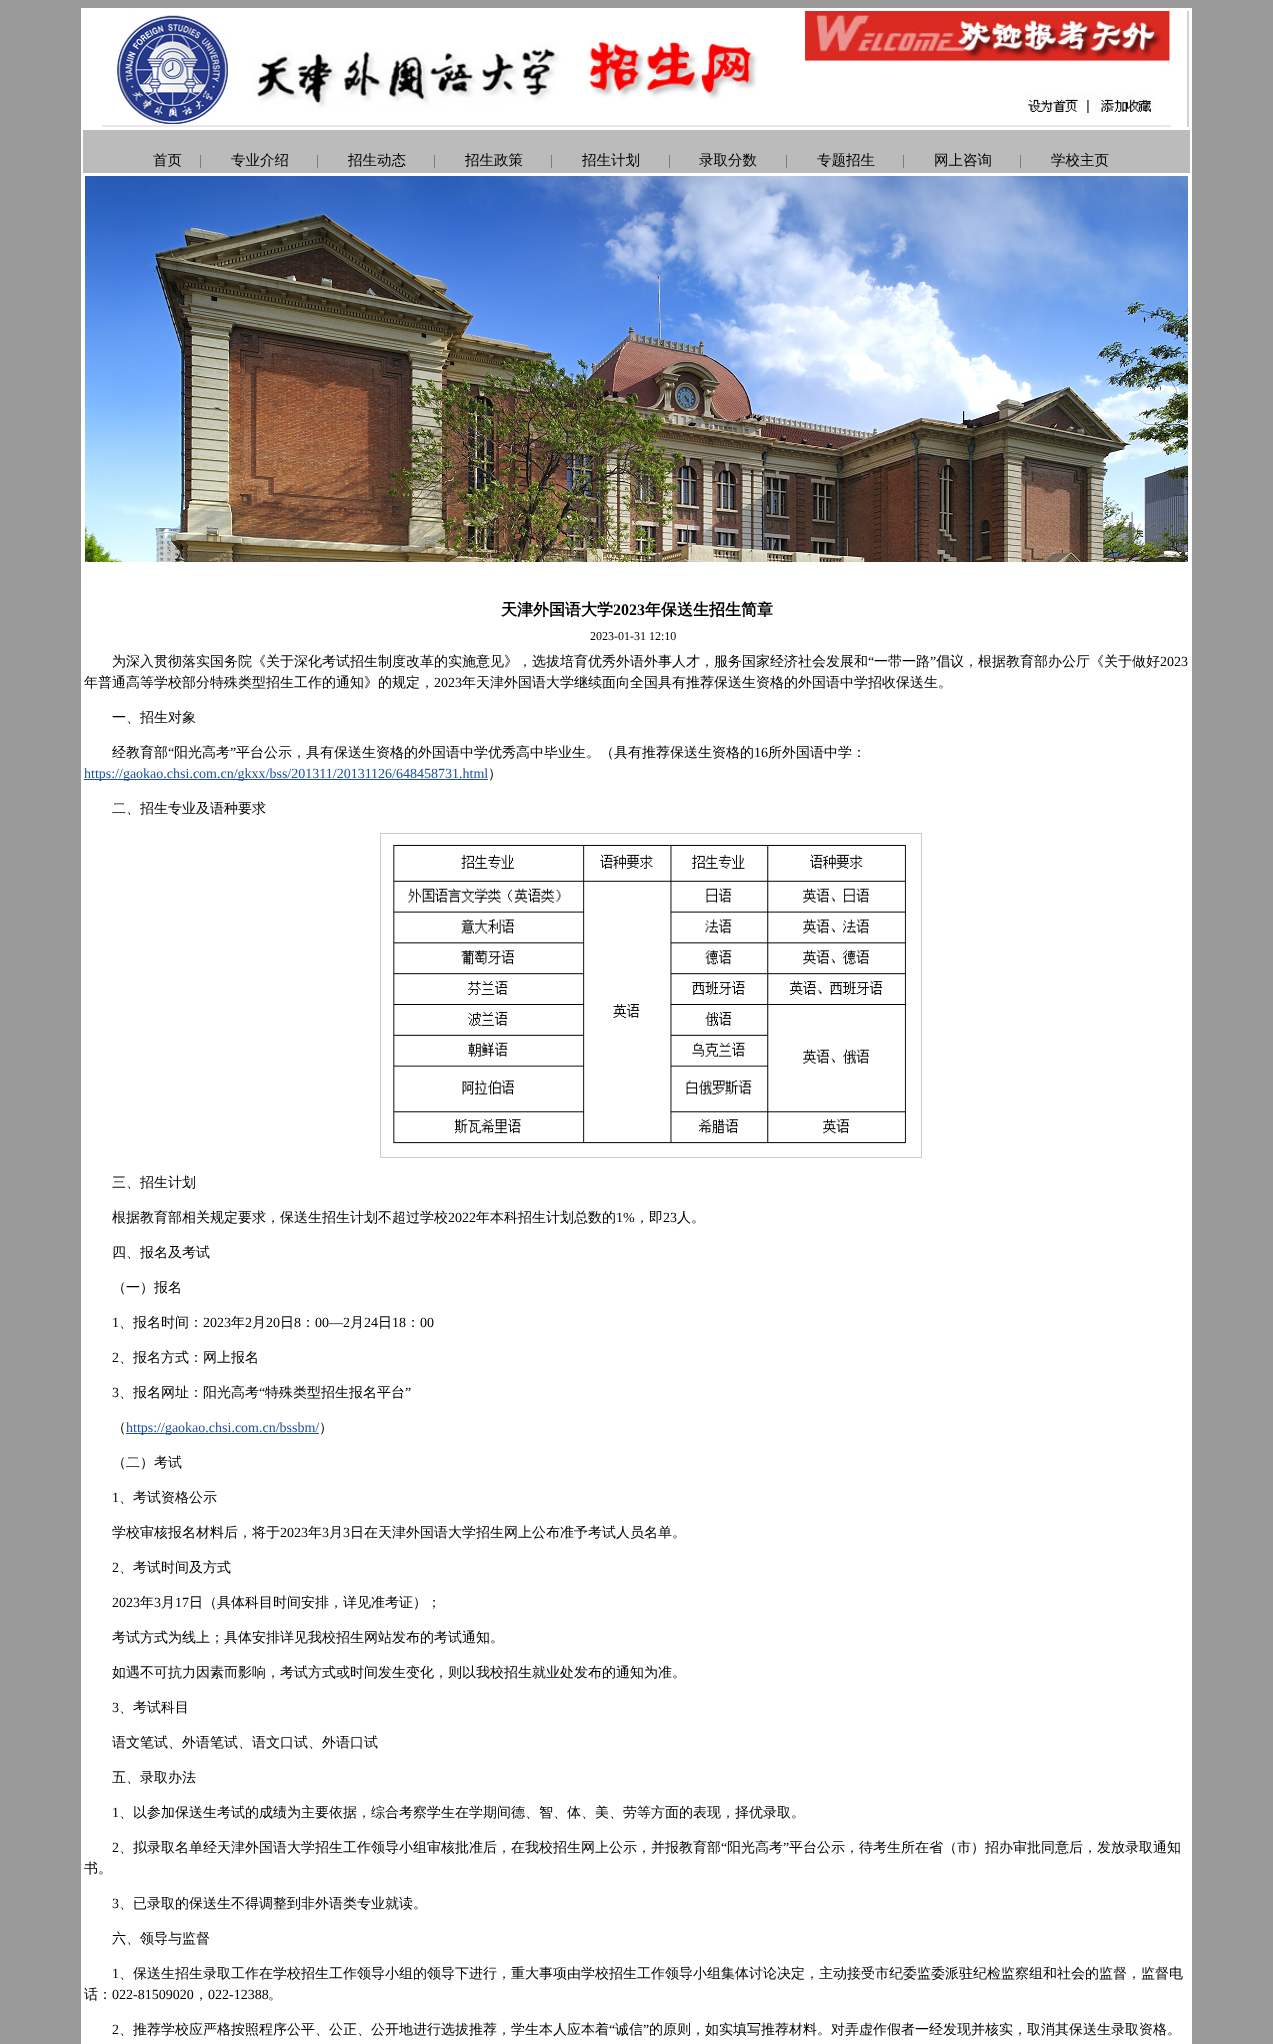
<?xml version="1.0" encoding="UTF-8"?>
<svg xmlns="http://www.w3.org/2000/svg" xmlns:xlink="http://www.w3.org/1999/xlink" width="1273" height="2044">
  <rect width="100%" height="100%" fill="#999999" />
  <rect x="81" y="8" width="1111" height="2036" fill="#ffffff" />
  <image x="102" y="11" width="1087" height="116" xlink:href="image1.png" />
  <rect x="83" y="130" width="1107" height="43" fill="#bbbbbb" />
  <image x="85" y="176" width="1103" height="386" xlink:href="image2.png" />
  <rect x="84" y="779" width="404" height="1" fill="#1e50a2" />
  <rect x="380.5" y="833.5" width="541" height="324" fill="none" stroke="#cccccc" />
  <image x="393" y="844" width="513" height="300" xlink:href="image3.png" />
  <rect x="126" y="1433" width="193" height="1" fill="#1e50a2" />
  <text x="153" y="165" style="font-family: WenQuanYi Zen Hei; font-size: 14.5px; font-weight: 500; fill: #000000">首页</text>
  <text x="199" y="165" style="font-family: Liberation Serif; font-size: 14.5px; fill: #666666">|</text>
  <text x="231" y="165" style="font-family: WenQuanYi Zen Hei; font-size: 14.5px; font-weight: 500; fill: #000000">专业介绍</text>
  <text x="316" y="165" style="font-family: Liberation Serif; font-size: 14.5px; fill: #666666">|</text>
  <text x="348" y="165" style="font-family: WenQuanYi Zen Hei; font-size: 14.5px; font-weight: 500; fill: #000000">招生动态</text>
  <text x="433" y="165" style="font-family: Liberation Serif; font-size: 14.5px; fill: #666666">|</text>
  <text x="465" y="165" style="font-family: WenQuanYi Zen Hei; font-size: 14.5px; font-weight: 500; fill: #000000">招生政策</text>
  <text x="550" y="165" style="font-family: Liberation Serif; font-size: 14.5px; fill: #666666">|</text>
  <text x="582" y="165" style="font-family: WenQuanYi Zen Hei; font-size: 14.5px; font-weight: 500; fill: #000000">招生计划</text>
  <text x="668" y="165" style="font-family: Liberation Serif; font-size: 14.5px; fill: #666666">|</text>
  <text x="699" y="165" style="font-family: WenQuanYi Zen Hei; font-size: 14.5px; font-weight: 500; fill: #000000">录取分数</text>
  <text x="785" y="165" style="font-family: Liberation Serif; font-size: 14.5px; fill: #666666">|</text>
  <text x="817" y="165" style="font-family: WenQuanYi Zen Hei; font-size: 14.5px; font-weight: 500; fill: #000000">专题招生</text>
  <text x="902" y="165" style="font-family: Liberation Serif; font-size: 14.5px; fill: #666666">|</text>
  <text x="934" y="165" style="font-family: WenQuanYi Zen Hei; font-size: 14.5px; font-weight: 500; fill: #000000">网上咨询</text>
  <text x="1019" y="165" style="font-family: Liberation Serif; font-size: 14.5px; fill: #666666">|</text>
  <text x="1051" y="165" style="font-family: WenQuanYi Zen Hei; font-size: 14.5px; font-weight: 500; fill: #000000">学校主页</text>
  <text x="501" y="615" style="font-family: WenQuanYi Zen Hei; font-size: 16px; font-weight: bold; fill: #000000">天津外国语大学</text>
  <text x="613" y="615" style="font-family: Liberation Serif; font-size: 16px; font-weight: bold; fill: #000000">2023</text>
  <text x="645" y="615" style="font-family: WenQuanYi Zen Hei; font-size: 16px; font-weight: bold; fill: #000000">年保送生招生简章</text>
  <text x="590" y="640" style="font-family: Liberation Serif; font-size: 12px; fill: #000000">2023-01-31 12:10</text>
  <text x="112" y="666" style="font-family: WenQuanYi Zen Hei; font-size: 14px; font-weight: 500; fill: #000000">为深入贯彻落实国务院《关于深化考试招生制度改革的实施意见》，选拔培育优秀外语外事人才，服务国家经济社会发展和</text>
  <text x="868" y="666" style="font-family: Liberation Serif; font-size: 14px; fill: #000000">“</text>
  <text x="874" y="666" style="font-family: WenQuanYi Zen Hei; font-size: 14px; font-weight: 500; fill: #000000">一带一路</text>
  <text x="930" y="666" style="font-family: Liberation Serif; font-size: 14px; fill: #000000">”</text>
  <text x="936" y="666" style="font-family: WenQuanYi Zen Hei; font-size: 14px; font-weight: 500; fill: #000000">倡议，根据教育部办公厅《关于做好</text>
  <text x="1160" y="666" style="font-family: Liberation Serif; font-size: 14px; fill: #000000">2023</text>
  <text x="84" y="687" style="font-family: WenQuanYi Zen Hei; font-size: 14px; font-weight: 500; fill: #000000">年普通高等学校部分特殊类型招生工作的通知》的规定，</text>
  <text x="434" y="687" style="font-family: Liberation Serif; font-size: 14px; fill: #000000">2023</text>
  <text x="462" y="687" style="font-family: WenQuanYi Zen Hei; font-size: 14px; font-weight: 500; fill: #000000">年天津外国语大学继续面向全国具有推荐保送生资格的外国语中学招收保送生。</text>
  <text x="112" y="722" style="font-family: WenQuanYi Zen Hei; font-size: 14px; font-weight: 500; fill: #000000">一、招生对象</text>
  <text x="112" y="757" style="font-family: WenQuanYi Zen Hei; font-size: 14px; font-weight: 500; fill: #000000">经教育部</text>
  <text x="168" y="757" style="font-family: Liberation Serif; font-size: 14px; fill: #000000">“</text>
  <text x="174" y="757" style="font-family: WenQuanYi Zen Hei; font-size: 14px; font-weight: 500; fill: #000000">阳光高考</text>
  <text x="230" y="757" style="font-family: Liberation Serif; font-size: 14px; fill: #000000">”</text>
  <text x="236" y="757" style="font-family: WenQuanYi Zen Hei; font-size: 14px; font-weight: 500; fill: #000000">平台公示，具有保送生资格的外国语中学优秀高中毕业生。（具有推荐保送生资格的</text>
  <text x="754" y="757" style="font-family: Liberation Serif; font-size: 14px; fill: #000000">16</text>
  <text x="768" y="757" style="font-family: WenQuanYi Zen Hei; font-size: 14px; font-weight: 500; fill: #000000">所外国语中学：</text>
  <text x="84" y="778" style="font-family: Liberation Serif; font-size: 14px; fill: #1e50a2">https://gaokao.chsi.com.cn/gkxx/bss/201311/20131126/648458731.html</text>
  <text x="488" y="778" style="font-family: WenQuanYi Zen Hei; font-size: 14px; font-weight: 500; fill: #000000">）</text>
  <text x="112" y="813" style="font-family: WenQuanYi Zen Hei; font-size: 14px; font-weight: 500; fill: #000000">二、招生专业及语种要求</text>
  <text x="112" y="1187" style="font-family: WenQuanYi Zen Hei; font-size: 14px; font-weight: 500; fill: #000000">三、招生计划</text>
  <text x="112" y="1222" style="font-family: WenQuanYi Zen Hei; font-size: 14px; font-weight: 500; fill: #000000">根据教育部相关规定要求，保送生招生计划不超过学校</text>
  <text x="448" y="1222" style="font-family: Liberation Serif; font-size: 14px; fill: #000000">2022</text>
  <text x="476" y="1222" style="font-family: WenQuanYi Zen Hei; font-size: 14px; font-weight: 500; fill: #000000">年本科招生计划总数的</text>
  <text x="616" y="1222" style="font-family: Liberation Serif; font-size: 14px; fill: #000000">1%</text>
  <text x="635" y="1222" style="font-family: WenQuanYi Zen Hei; font-size: 14px; font-weight: 500; fill: #000000">，即</text>
  <text x="663" y="1222" style="font-family: Liberation Serif; font-size: 14px; fill: #000000">23</text>
  <text x="677" y="1222" style="font-family: WenQuanYi Zen Hei; font-size: 14px; font-weight: 500; fill: #000000">人。</text>
  <text x="112" y="1257" style="font-family: WenQuanYi Zen Hei; font-size: 14px; font-weight: 500; fill: #000000">四、报名及考试</text>
  <text x="112" y="1292" style="font-family: WenQuanYi Zen Hei; font-size: 14px; font-weight: 500; fill: #000000">（一）报名</text>
  <text x="112" y="1327" style="font-family: Liberation Serif; font-size: 14px; fill: #000000">1</text>
  <text x="119" y="1327" style="font-family: WenQuanYi Zen Hei; font-size: 14px; font-weight: 500; fill: #000000">、报名时间：</text>
  <text x="203" y="1327" style="font-family: Liberation Serif; font-size: 14px; fill: #000000">2023</text>
  <text x="231" y="1327" style="font-family: WenQuanYi Zen Hei; font-size: 14px; font-weight: 500; fill: #000000">年</text>
  <text x="245" y="1327" style="font-family: Liberation Serif; font-size: 14px; fill: #000000">2</text>
  <text x="252" y="1327" style="font-family: WenQuanYi Zen Hei; font-size: 14px; font-weight: 500; fill: #000000">月</text>
  <text x="266" y="1327" style="font-family: Liberation Serif; font-size: 14px; fill: #000000">20</text>
  <text x="280" y="1327" style="font-family: WenQuanYi Zen Hei; font-size: 14px; font-weight: 500; fill: #000000">日</text>
  <text x="294" y="1327" style="font-family: Liberation Serif; font-size: 14px; fill: #000000">8</text>
  <text x="301" y="1327" style="font-family: WenQuanYi Zen Hei; font-size: 14px; font-weight: 500; fill: #000000">：</text>
  <text x="315" y="1327" style="font-family: Liberation Serif; font-size: 14px; fill: #000000">00—2</text>
  <text x="350" y="1327" style="font-family: WenQuanYi Zen Hei; font-size: 14px; font-weight: 500; fill: #000000">月</text>
  <text x="364" y="1327" style="font-family: Liberation Serif; font-size: 14px; fill: #000000">24</text>
  <text x="378" y="1327" style="font-family: WenQuanYi Zen Hei; font-size: 14px; font-weight: 500; fill: #000000">日</text>
  <text x="392" y="1327" style="font-family: Liberation Serif; font-size: 14px; fill: #000000">18</text>
  <text x="406" y="1327" style="font-family: WenQuanYi Zen Hei; font-size: 14px; font-weight: 500; fill: #000000">：</text>
  <text x="420" y="1327" style="font-family: Liberation Serif; font-size: 14px; fill: #000000">00</text>
  <text x="112" y="1362" style="font-family: Liberation Serif; font-size: 14px; fill: #000000">2</text>
  <text x="119" y="1362" style="font-family: WenQuanYi Zen Hei; font-size: 14px; font-weight: 500; fill: #000000">、报名方式：网上报名</text>
  <text x="112" y="1397" style="font-family: Liberation Serif; font-size: 14px; fill: #000000">3</text>
  <text x="119" y="1397" style="font-family: WenQuanYi Zen Hei; font-size: 14px; font-weight: 500; fill: #000000">、报名网址：阳光高考</text>
  <text x="259" y="1397" style="font-family: Liberation Serif; font-size: 14px; fill: #000000">“</text>
  <text x="265" y="1397" style="font-family: WenQuanYi Zen Hei; font-size: 14px; font-weight: 500; fill: #000000">特殊类型招生报名平台</text>
  <text x="405" y="1397" style="font-family: Liberation Serif; font-size: 14px; fill: #000000">”</text>
  <text x="112" y="1432" style="font-family: WenQuanYi Zen Hei; font-size: 14px; font-weight: 500; fill: #000000">（</text>
  <text x="126" y="1432" style="font-family: Liberation Serif; font-size: 14px; fill: #1e50a2">https://gaokao.chsi.com.cn/bssbm/</text>
  <text x="319" y="1432" style="font-family: WenQuanYi Zen Hei; font-size: 14px; font-weight: 500; fill: #000000">）</text>
  <text x="112" y="1467" style="font-family: WenQuanYi Zen Hei; font-size: 14px; font-weight: 500; fill: #000000">（二）考试</text>
  <text x="112" y="1502" style="font-family: Liberation Serif; font-size: 14px; fill: #000000">1</text>
  <text x="119" y="1502" style="font-family: WenQuanYi Zen Hei; font-size: 14px; font-weight: 500; fill: #000000">、考试资格公示</text>
  <text x="112" y="1537" style="font-family: WenQuanYi Zen Hei; font-size: 14px; font-weight: 500; fill: #000000">学校审核报名材料后，将于</text>
  <text x="280" y="1537" style="font-family: Liberation Serif; font-size: 14px; fill: #000000">2023</text>
  <text x="308" y="1537" style="font-family: WenQuanYi Zen Hei; font-size: 14px; font-weight: 500; fill: #000000">年</text>
  <text x="322" y="1537" style="font-family: Liberation Serif; font-size: 14px; fill: #000000">3</text>
  <text x="329" y="1537" style="font-family: WenQuanYi Zen Hei; font-size: 14px; font-weight: 500; fill: #000000">月</text>
  <text x="343" y="1537" style="font-family: Liberation Serif; font-size: 14px; fill: #000000">3</text>
  <text x="350" y="1537" style="font-family: WenQuanYi Zen Hei; font-size: 14px; font-weight: 500; fill: #000000">日在天津外国语大学招生网上公布准予考试人员名单。</text>
  <text x="112" y="1572" style="font-family: Liberation Serif; font-size: 14px; fill: #000000">2</text>
  <text x="119" y="1572" style="font-family: WenQuanYi Zen Hei; font-size: 14px; font-weight: 500; fill: #000000">、考试时间及方式</text>
  <text x="112" y="1607" style="font-family: Liberation Serif; font-size: 14px; fill: #000000">2023</text>
  <text x="140" y="1607" style="font-family: WenQuanYi Zen Hei; font-size: 14px; font-weight: 500; fill: #000000">年</text>
  <text x="154" y="1607" style="font-family: Liberation Serif; font-size: 14px; fill: #000000">3</text>
  <text x="161" y="1607" style="font-family: WenQuanYi Zen Hei; font-size: 14px; font-weight: 500; fill: #000000">月</text>
  <text x="175" y="1607" style="font-family: Liberation Serif; font-size: 14px; fill: #000000">17</text>
  <text x="189" y="1607" style="font-family: WenQuanYi Zen Hei; font-size: 14px; font-weight: 500; fill: #000000">日（具体科目时间安排，详见准考证）；</text>
  <text x="112" y="1642" style="font-family: WenQuanYi Zen Hei; font-size: 14px; font-weight: 500; fill: #000000">考试方式为线上；具体安排详见我校招生网站发布的考试通知。</text>
  <text x="112" y="1677" style="font-family: WenQuanYi Zen Hei; font-size: 14px; font-weight: 500; fill: #000000">如遇不可抗力因素而影响，考试方式或时间发生变化，则以我校招生就业处发布的通知为准。</text>
  <text x="112" y="1712" style="font-family: Liberation Serif; font-size: 14px; fill: #000000">3</text>
  <text x="119" y="1712" style="font-family: WenQuanYi Zen Hei; font-size: 14px; font-weight: 500; fill: #000000">、考试科目</text>
  <text x="112" y="1747" style="font-family: WenQuanYi Zen Hei; font-size: 14px; font-weight: 500; fill: #000000">语文笔试、外语笔试、语文口试、外语口试</text>
  <text x="112" y="1782" style="font-family: WenQuanYi Zen Hei; font-size: 14px; font-weight: 500; fill: #000000">五、录取办法</text>
  <text x="112" y="1817" style="font-family: Liberation Serif; font-size: 14px; fill: #000000">1</text>
  <text x="119" y="1817" style="font-family: WenQuanYi Zen Hei; font-size: 14px; font-weight: 500; fill: #000000">、以参加保送生考试的成绩为主要依据，综合考察学生在学期间德、智、体、美、劳等方面的表现，择优录取。</text>
  <text x="112" y="1852" style="font-family: Liberation Serif; font-size: 14px; fill: #000000">2</text>
  <text x="119" y="1852" style="font-family: WenQuanYi Zen Hei; font-size: 14px; font-weight: 500; fill: #000000">、拟录取名单经天津外国语大学招生工作领导小组审核批准后，在我校招生网上公示，并报教育部</text>
  <text x="721" y="1852" style="font-family: Liberation Serif; font-size: 14px; fill: #000000">“</text>
  <text x="727" y="1852" style="font-family: WenQuanYi Zen Hei; font-size: 14px; font-weight: 500; fill: #000000">阳光高考</text>
  <text x="783" y="1852" style="font-family: Liberation Serif; font-size: 14px; fill: #000000">”</text>
  <text x="789" y="1852" style="font-family: WenQuanYi Zen Hei; font-size: 14px; font-weight: 500; fill: #000000">平台公示，待考生所在省（市）招办审批同意后，发放录取通知</text>
  <text x="84" y="1873" style="font-family: WenQuanYi Zen Hei; font-size: 14px; font-weight: 500; fill: #000000">书。</text>
  <text x="112" y="1908" style="font-family: Liberation Serif; font-size: 14px; fill: #000000">3</text>
  <text x="119" y="1908" style="font-family: WenQuanYi Zen Hei; font-size: 14px; font-weight: 500; fill: #000000">、已录取的保送生不得调整到非外语类专业就读。</text>
  <text x="112" y="1943" style="font-family: WenQuanYi Zen Hei; font-size: 14px; font-weight: 500; fill: #000000">六、领导与监督</text>
  <text x="112" y="1978" style="font-family: Liberation Serif; font-size: 14px; fill: #000000">1</text>
  <text x="119" y="1978" style="font-family: WenQuanYi Zen Hei; font-size: 14px; font-weight: 500; fill: #000000">、保送生招生录取工作在学校招生工作领导小组的领导下进行，重大事项由学校招生工作领导小组集体讨论决定，主动接受市纪委监委派驻纪检监察组和社会的监督，监督电</text>
  <text x="84" y="1999" style="font-family: WenQuanYi Zen Hei; font-size: 14px; font-weight: 500; fill: #000000">话：</text>
  <text x="112" y="1999" style="font-family: Liberation Serif; font-size: 14px; fill: #000000">022-81509020</text>
  <text x="194" y="1999" style="font-family: WenQuanYi Zen Hei; font-size: 14px; font-weight: 500; fill: #000000">，</text>
  <text x="208" y="1999" style="font-family: Liberation Serif; font-size: 14px; fill: #000000">022-12388</text>
  <text x="268" y="1999" style="font-family: WenQuanYi Zen Hei; font-size: 14px; font-weight: 500; fill: #000000">。</text>
  <text x="112" y="2034" style="font-family: Liberation Serif; font-size: 14px; fill: #000000">2</text>
  <text x="119" y="2034" style="font-family: WenQuanYi Zen Hei; font-size: 14px; font-weight: 500; fill: #000000">、推荐学校应严格按照程序公平、公正、公开地进行选拔推荐，学生本人应本着</text>
  <text x="609" y="2034" style="font-family: Liberation Serif; font-size: 14px; fill: #000000">“</text>
  <text x="615" y="2034" style="font-family: WenQuanYi Zen Hei; font-size: 14px; font-weight: 500; fill: #000000">诚信</text>
  <text x="643" y="2034" style="font-family: Liberation Serif; font-size: 14px; fill: #000000">”</text>
  <text x="649" y="2034" style="font-family: WenQuanYi Zen Hei; font-size: 14px; font-weight: 500; fill: #000000">的原则，如实填写推荐材料。对弄虚作假者一经发现并核实，取消其保送生录取资格。</text>
</svg>
